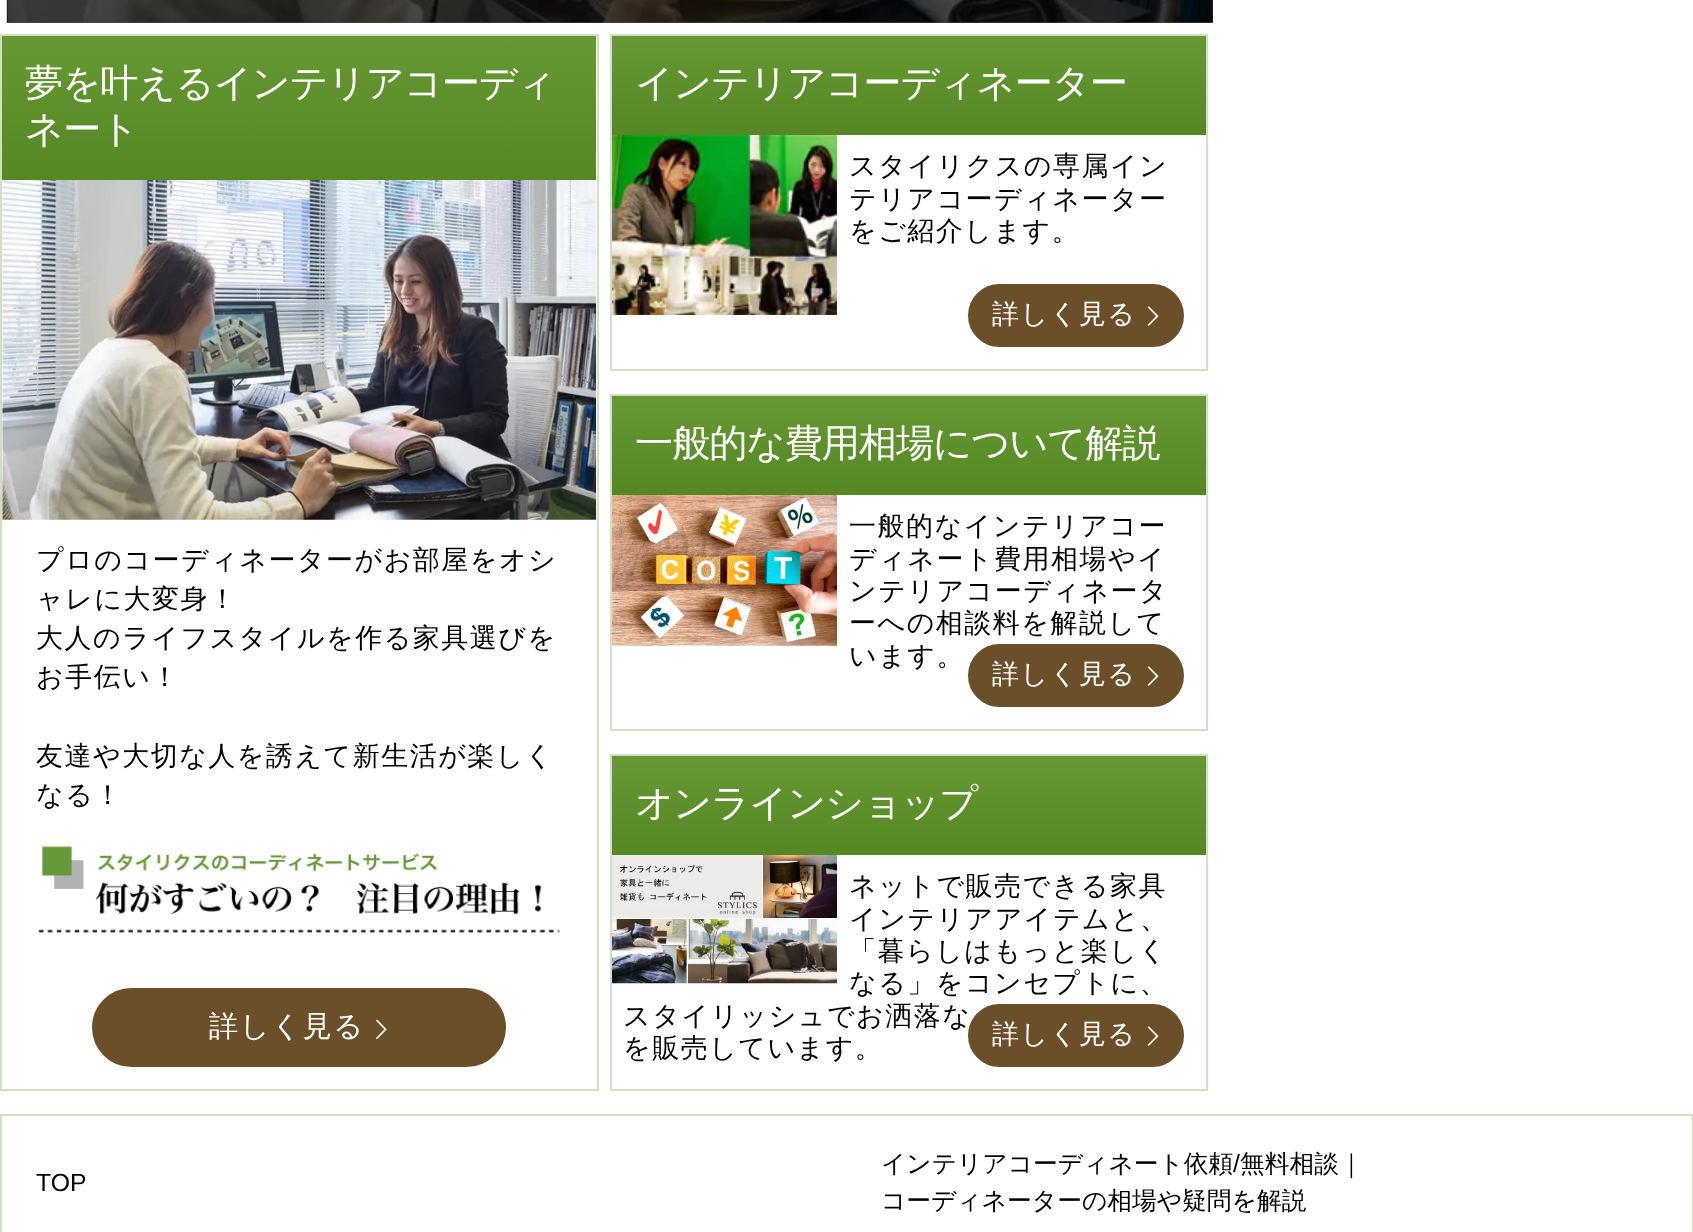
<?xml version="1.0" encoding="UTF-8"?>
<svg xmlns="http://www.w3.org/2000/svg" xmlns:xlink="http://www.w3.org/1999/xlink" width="1693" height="1232">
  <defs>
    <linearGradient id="g1" gradientUnits="userSpaceOnUse" x1="299" y1="36" x2="299" y2="180"><stop offset="0" stop-color="#669933" /><stop offset="1" stop-color="#558822" /></linearGradient>
    <linearGradient id="g2" gradientUnits="userSpaceOnUse" x1="909" y1="36" x2="909" y2="135"><stop offset="0" stop-color="#669933" /><stop offset="1" stop-color="#558822" /></linearGradient>
    <linearGradient id="g3" gradientUnits="userSpaceOnUse" x1="909" y1="396" x2="909" y2="495"><stop offset="0" stop-color="#669933" /><stop offset="1" stop-color="#558822" /></linearGradient>
    <linearGradient id="g4" gradientUnits="userSpaceOnUse" x1="909" y1="756" x2="909" y2="855"><stop offset="0" stop-color="#669933" /><stop offset="1" stop-color="#558822" /></linearGradient>
  </defs>
  <rect width="100%" height="100%" fill="#ffffff" />
  <rect x="7" width="1206" height="23" fill="#4d4d4d" />
  <image x="6" y="0" width="1207" height="23" xlink:href="image1.png" />
  <rect x="1" y="35" width="597" height="1055" fill="none" stroke="#d1e0c2" stroke-width="2" />
  <rect x="2" y="36" width="594" height="144" fill="url(#g1)" />
  <image x="2" y="180" width="595" height="340" xlink:href="image2.png" />
  <image x="38" y="846" width="522" height="87" xlink:href="image3.png" />
  <rect x="95.5" y="991.5" width="407" height="72" rx="36" fill="#6b4f28" stroke="#6b4f28" stroke-width="7" />
  <image x="376" y="1019" width="11" height="20" xlink:href="image4.png" />
  <rect x="611" y="35" width="596" height="335" fill="none" stroke="#d1e0c2" stroke-width="2" />
  <rect x="612" y="36" width="594" height="99" fill="url(#g2)" />
  <image x="612" y="135" width="225" height="180" xlink:href="image5.png" />
  <rect x="971.5" y="287.5" width="209" height="56" rx="28" fill="#6b4f28" stroke="#6b4f28" stroke-width="7" />
  <image x="1147" y="306" width="12" height="20" xlink:href="image6.png" />
  <rect x="611" y="395" width="596" height="335" fill="none" stroke="#d1e0c2" stroke-width="2" />
  <rect x="612" y="396" width="594" height="99" fill="url(#g3)" />
  <image x="612" y="495" width="225" height="151" xlink:href="image7.png" />
  <rect x="971.5" y="647.5" width="209" height="56" rx="28" fill="#6b4f28" stroke="#6b4f28" stroke-width="7" />
  <image x="1147" y="666" width="12" height="20" xlink:href="image6.png" />
  <rect x="611" y="755" width="596" height="335" fill="none" stroke="#d1e0c2" stroke-width="2" />
  <rect x="612" y="756" width="594" height="99" fill="url(#g4)" />
  <image x="612" y="855" width="225" height="129" xlink:href="image8.png" />
  <rect x="971.5" y="1007.5" width="209" height="56" rx="28" fill="#6b4f28" stroke="#6b4f28" stroke-width="7" />
  <image x="1147" y="1026" width="12" height="20" xlink:href="image6.png" />
  <rect x="1" y="1115" width="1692" height="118" fill="none" stroke="#d1e0c2" stroke-width="2" />
  <text x="25" y="96" style="font-family: WenQuanYi Zen Hei; font-size: 38.25px; font-weight: 500; letter-spacing: -1.1px; fill: #ffffff">夢を叶えるインテリアコーディ</text>
  <text x="25" y="142" style="font-family: WenQuanYi Zen Hei; font-size: 38.25px; font-weight: 500; letter-spacing: -1.1px; fill: #ffffff">ネート</text>
  <text x="36" y="569" style="font-family: WenQuanYi Zen Hei; font-size: 27px; font-weight: 500; letter-spacing: 1.5px; fill: #000000">プロのコーディネーターがお部屋をオシ</text>
  <text x="36" y="608" style="font-family: WenQuanYi Zen Hei; font-size: 27px; font-weight: 500; letter-spacing: 1.5px; fill: #000000">ャレに大変身！</text>
  <text x="36" y="647" style="font-family: WenQuanYi Zen Hei; font-size: 27px; font-weight: 500; letter-spacing: 1.5px; fill: #000000">大人のライフスタイルを作る家具選びを</text>
  <text x="36" y="686" style="font-family: WenQuanYi Zen Hei; font-size: 27px; font-weight: 500; letter-spacing: 1.5px; fill: #000000">お手伝い！</text>
  <text x="36" y="765" style="font-family: WenQuanYi Zen Hei; font-size: 27px; font-weight: 500; letter-spacing: 1.5px; fill: #000000">友達や大切な人を誘えて新生活が楽しく</text>
  <text x="36" y="804" style="font-family: WenQuanYi Zen Hei; font-size: 27px; font-weight: 500; letter-spacing: 1.5px; fill: #000000">なる！</text>
  <text x="209" y="1036" style="font-family: WenQuanYi Zen Hei; font-size: 29.25px; font-weight: 500; letter-spacing: 1.5px; fill: #ffffff">詳しく見る</text>
  <text x="635" y="96" style="font-family: WenQuanYi Zen Hei; font-size: 38.25px; font-weight: 500; letter-spacing: -1.1px; fill: #ffffff">インテリアコーディネーター</text>
  <text x="849" y="175" style="font-family: WenQuanYi Zen Hei; font-size: 27px; font-weight: 500; letter-spacing: 1.5px; fill: #000000">スタイリクスの専属イン</text>
  <text x="849" y="208" style="font-family: WenQuanYi Zen Hei; font-size: 27px; font-weight: 500; letter-spacing: 1.5px; fill: #000000">テリアコーディネーター</text>
  <text x="849" y="240" style="font-family: WenQuanYi Zen Hei; font-size: 27px; font-weight: 500; letter-spacing: 1.5px; fill: #000000">をご紹介します。</text>
  <text x="992" y="323" style="font-family: WenQuanYi Zen Hei; font-size: 27px; font-weight: 500; letter-spacing: 1.5px; fill: #ffffff">詳しく見る</text>
  <text x="635" y="456" style="font-family: WenQuanYi Zen Hei; font-size: 38.25px; font-weight: 500; letter-spacing: -1.1px; fill: #ffffff">一般的な費用相場について解説</text>
  <text x="849" y="535" style="font-family: WenQuanYi Zen Hei; font-size: 27px; font-weight: 500; letter-spacing: 1.5px; fill: #000000">一般的なインテリアコー</text>
  <text x="849" y="568" style="font-family: WenQuanYi Zen Hei; font-size: 27px; font-weight: 500; letter-spacing: 1.5px; fill: #000000">ディネート費用相場やイ</text>
  <text x="849" y="600" style="font-family: WenQuanYi Zen Hei; font-size: 27px; font-weight: 500; letter-spacing: 1.5px; fill: #000000">ンテリアコーディネータ</text>
  <text x="849" y="632" style="font-family: WenQuanYi Zen Hei; font-size: 27px; font-weight: 500; letter-spacing: 1.5px; fill: #000000">ーへの相談料を解説して</text>
  <text x="849" y="665" style="font-family: WenQuanYi Zen Hei; font-size: 27px; font-weight: 500; letter-spacing: 1.5px; fill: #000000">います。</text>
  <text x="992" y="683" style="font-family: WenQuanYi Zen Hei; font-size: 27px; font-weight: 500; letter-spacing: 1.5px; fill: #ffffff">詳しく見る</text>
  <text x="635" y="816" style="font-family: WenQuanYi Zen Hei; font-size: 38.25px; font-weight: 500; letter-spacing: -1.1px; fill: #ffffff">オンラインショップ</text>
  <text x="849" y="895" style="font-family: WenQuanYi Zen Hei; font-size: 27px; font-weight: 500; letter-spacing: 1.5px; fill: #000000">ネットで販売できる家具</text>
  <text x="849" y="928" style="font-family: WenQuanYi Zen Hei; font-size: 27px; font-weight: 500; letter-spacing: 1.5px; fill: #000000">インテリアアイテムと、</text>
  <text x="849" y="960" style="font-family: WenQuanYi Zen Hei; font-size: 27px; font-weight: 500; letter-spacing: 1.5px; fill: #000000">「暮らしはもっと楽しく</text>
  <text x="849" y="992" style="font-family: WenQuanYi Zen Hei; font-size: 27px; font-weight: 500; letter-spacing: 1.5px; fill: #000000">なる」をコンセプトに、</text>
  <text x="623" y="1025" style="font-family: WenQuanYi Zen Hei; font-size: 27px; font-weight: 500; letter-spacing: 1.5px; fill: #000000">スタイリッシュでお洒落な</text>
  <text x="623" y="1057" style="font-family: WenQuanYi Zen Hei; font-size: 27px; font-weight: 500; letter-spacing: 1.5px; fill: #000000">を販売しています。</text>
  <text x="992" y="1043" style="font-family: WenQuanYi Zen Hei; font-size: 27px; font-weight: 500; letter-spacing: 1.5px; fill: #ffffff">詳しく見る</text>
  <text x="36" y="1191" style="font-family: Liberation Sans; font-size: 24.75px; fill: #000000">TOP</text>
  <text x="881" y="1172" style="font-family: WenQuanYi Zen Hei; font-size: 24.75px; font-weight: 500; fill: #000000">インテリアコーディネート依頼</text>
  <text x="1233" y="1172" style="font-family: Liberation Sans; font-size: 24.75px; fill: #000000">/</text>
  <text x="1240" y="1172" style="font-family: WenQuanYi Zen Hei; font-size: 24.75px; font-weight: 500; fill: #000000">無料相談｜</text>
  <text x="881" y="1209" style="font-family: WenQuanYi Zen Hei; font-size: 24.75px; font-weight: 500; fill: #000000">コーディネーターの相場や疑問を解説</text>
</svg>
